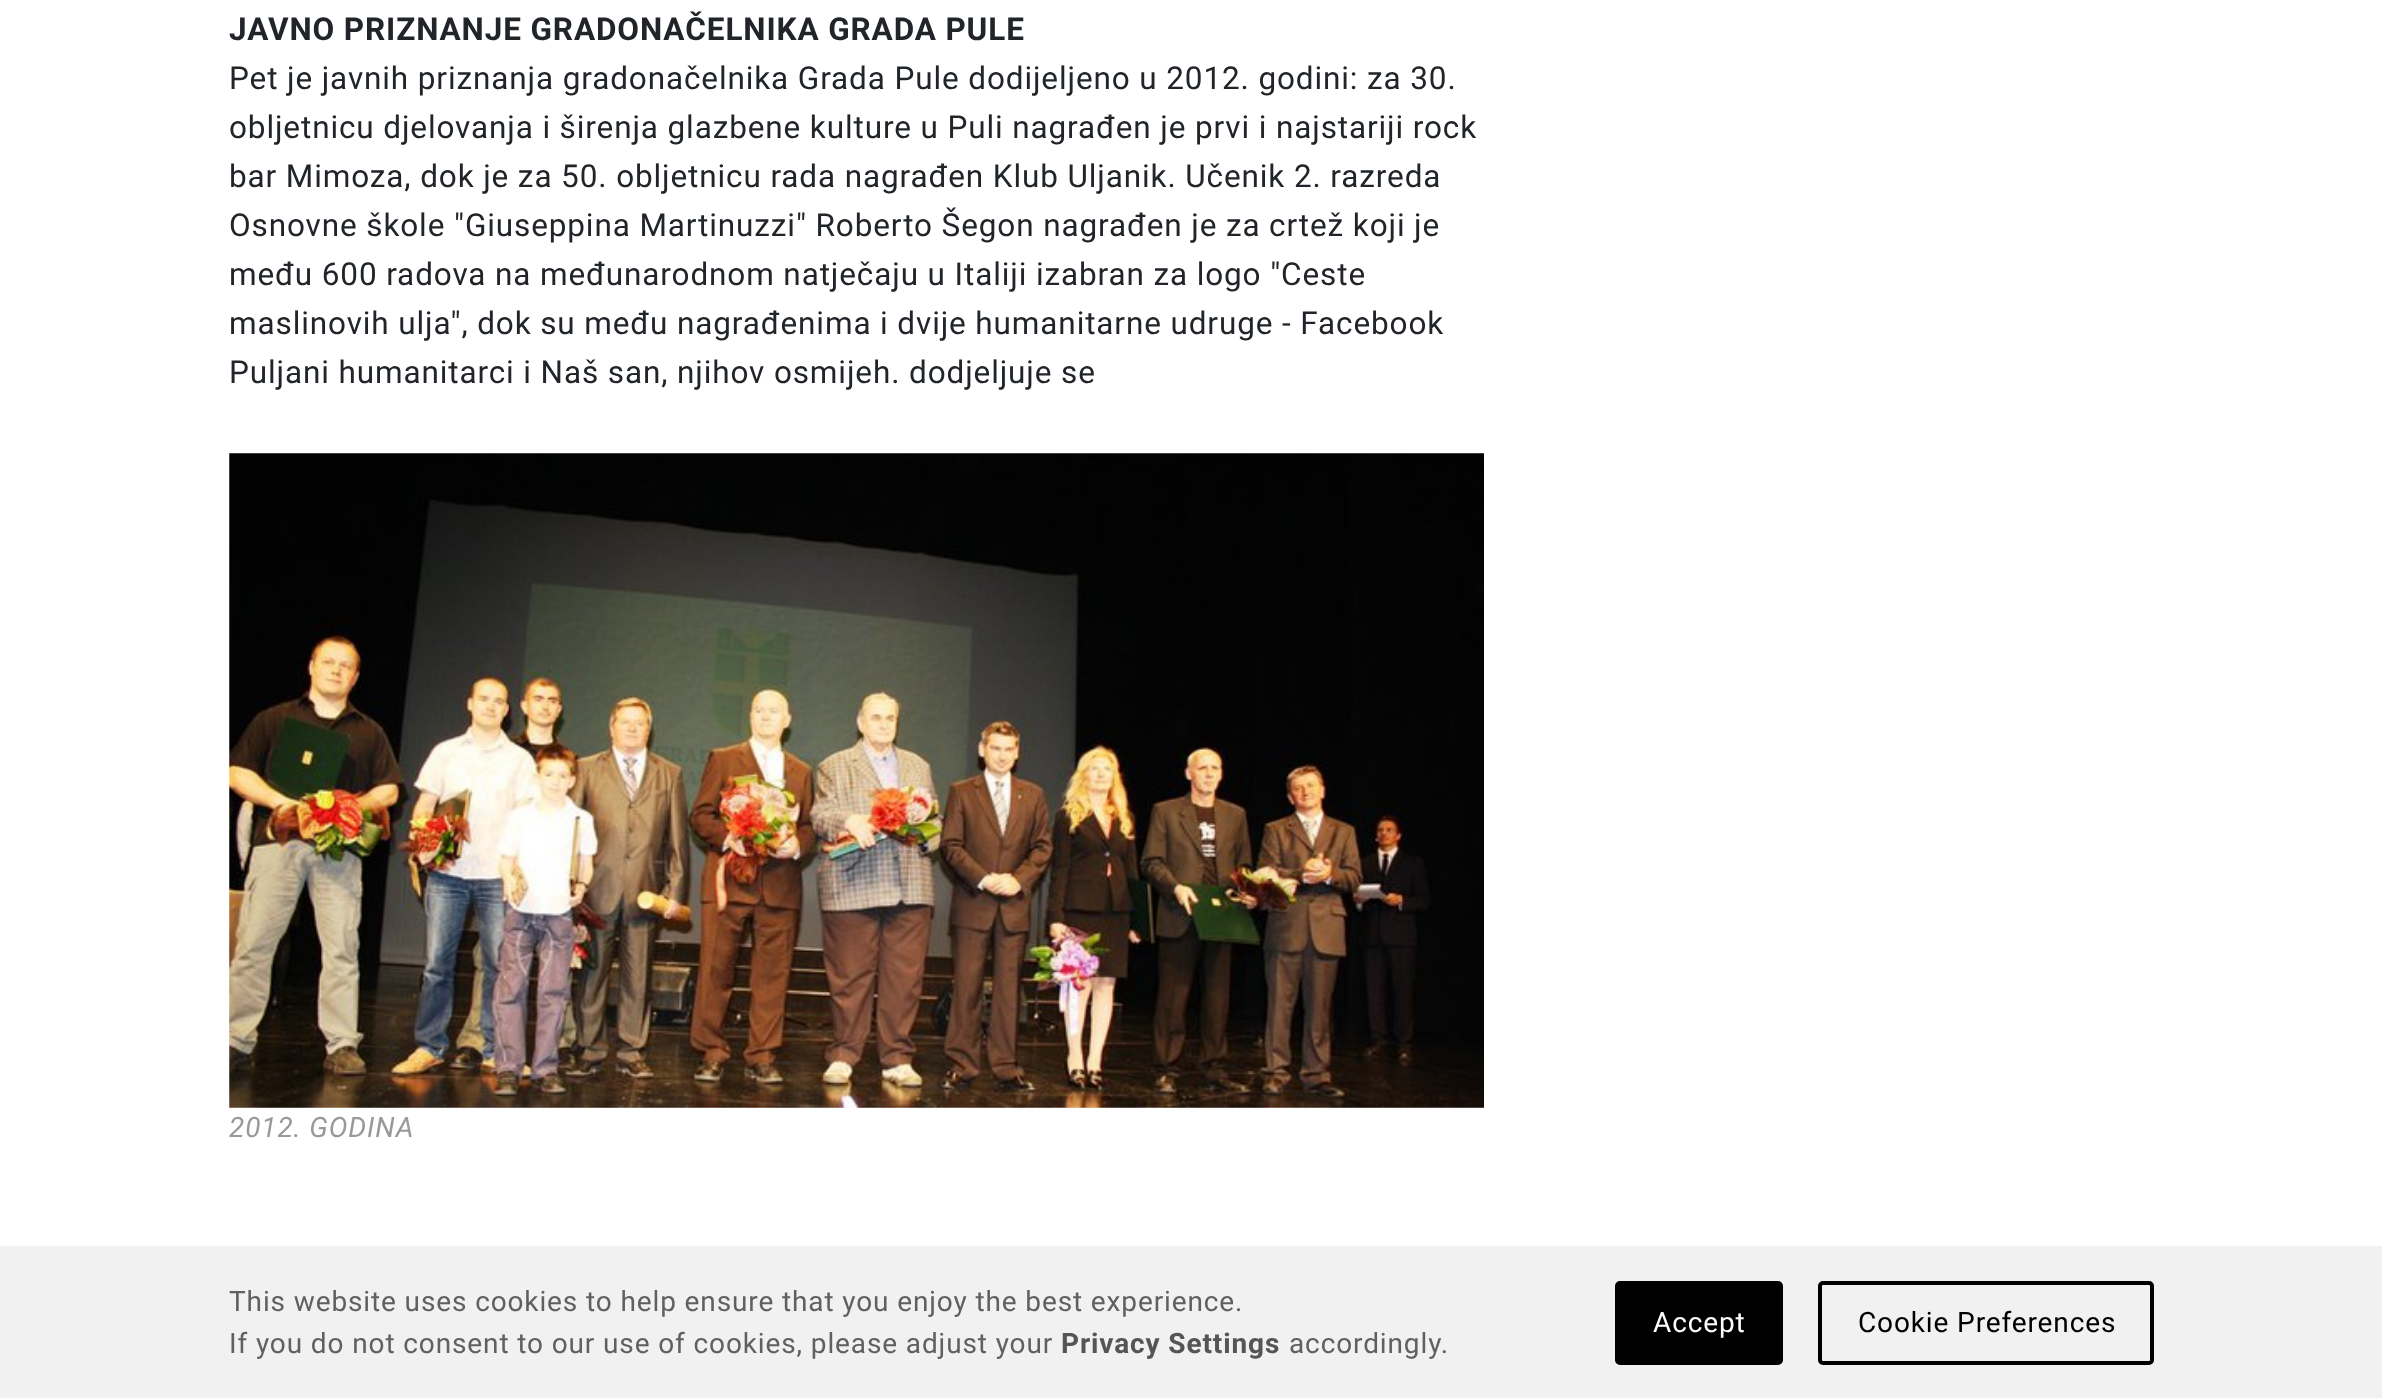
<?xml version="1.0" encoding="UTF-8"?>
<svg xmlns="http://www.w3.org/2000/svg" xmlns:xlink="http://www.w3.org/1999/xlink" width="2382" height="1398">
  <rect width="100%" height="100%" fill="#ffffff" />
  <image x="229" y="453" width="1255" height="655" xlink:href="image1.png" />
  <rect y="1246" width="2382" height="152" fill="#f1f1f1" />
  <rect x="1617" y="1283" width="164" height="80" rx="3" fill="#000000" stroke="#000000" stroke-width="4" />
  <rect x="1820" y="1283" width="332" height="80" rx="3" fill="none" stroke="#000000" stroke-width="4" />
  <text x="229" y="40" style="font-family: Roboto; font-size: 31.5px; font-weight: bold; letter-spacing: 0.88px; fill: #212529">JAVNO PRIZNANJE GRADONAČELNIKA GRADA PULE</text>
  <text x="229" y="89" style="font-family: Roboto; font-size: 31.5px; letter-spacing: 0.88px; fill: #212529">Pet je javnih priznanja gradonačelnika Grada Pule dodijeljeno u 2012. godini: za 30.</text>
  <text x="229" y="138" style="font-family: Roboto; font-size: 31.5px; letter-spacing: 0.88px; fill: #212529">obljetnicu djelovanja i širenja glazbene kulture u Puli nagrađen je prvi i najstariji rock</text>
  <text x="229" y="187" style="font-family: Roboto; font-size: 31.5px; letter-spacing: 0.88px; fill: #212529">bar Mimoza, dok je za 50. obljetnicu rada nagrađen Klub Uljanik. Učenik 2. razreda</text>
  <text x="229" y="236" style="font-family: Roboto; font-size: 31.5px; letter-spacing: 0.88px; fill: #212529">Osnovne škole "Giuseppina Martinuzzi" Roberto Šegon nagrađen je za crtež koji je</text>
  <text x="229" y="285" style="font-family: Roboto; font-size: 31.5px; letter-spacing: 0.88px; fill: #212529">među 600 radova na međunarodnom natječaju u Italiji izabran za logo "Ceste</text>
  <text x="229" y="334" style="font-family: Roboto; font-size: 31.5px; letter-spacing: 0.88px; fill: #212529">maslinovih ulja", dok su među nagrađenima i dvije humanitarne udruge - Facebook</text>
  <text x="229" y="383" style="font-family: Roboto; font-size: 31.5px; letter-spacing: 0.88px; fill: #212529">Puljani humanitarci i Naš san, njihov osmijeh. dodjeljuje se</text>
  <text x="229" y="1137" style="font-family: Roboto; font-size: 28px; font-style: italic; letter-spacing: 0.88px; fill: #999999">2012. GODINA</text>
  <text x="229" y="1311" style="font-family: Roboto; font-size: 28px; letter-spacing: 0.88px; fill: #606060">This website uses cookies to help ensure that you enjoy the best experience.</text>
  <text x="229" y="1353" style="font-family: Roboto; font-size: 28px; letter-spacing: 0.88px; fill: #606060">If you do not consent to our use of cookies, please adjust your</text>
  <text x="1061" y="1353" style="font-family: Roboto; font-size: 28px; font-weight: bold; letter-spacing: 0.88px; fill: #555555">Privacy Settings</text>
  <text x="1289" y="1353" style="font-family: Roboto; font-size: 28px; letter-spacing: 0.88px; fill: #606060">accordingly.</text>
  <text x="1653" y="1332" style="font-family: Roboto; font-size: 28px; letter-spacing: 0.88px; fill: #ffffff">Accept</text>
  <text x="1858" y="1332" style="font-family: Roboto; font-size: 28px; letter-spacing: 0.88px; fill: #000000">Cookie Preferences</text>
</svg>
